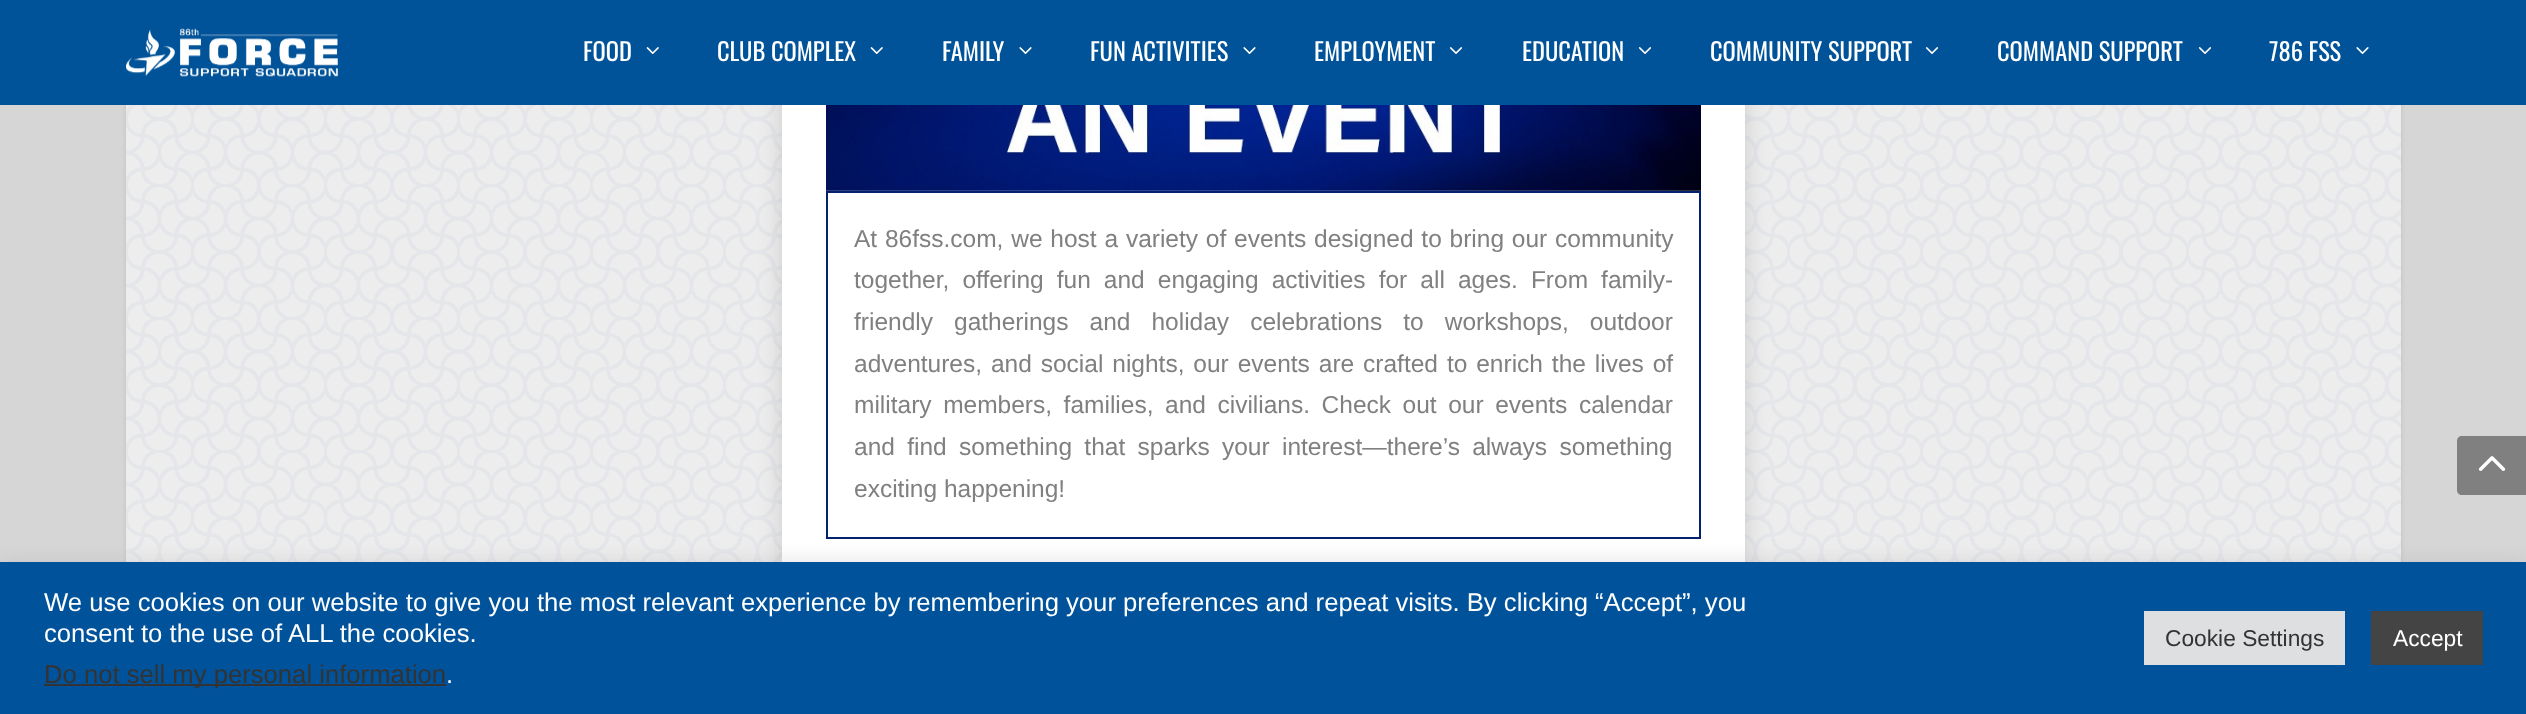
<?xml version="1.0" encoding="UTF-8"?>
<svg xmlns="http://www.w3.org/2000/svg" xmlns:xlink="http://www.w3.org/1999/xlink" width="2526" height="714">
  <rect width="100%" height="100%" fill="#d6d6d6" />
  <rect x="126" y="-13" width="2275" height="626" rx="5" fill="#000000" fill-opacity="0.1" filter="blur(2.5px)" />
  <rect x="126" y="105" width="2275" height="457" fill="#ededed" />
  <image x="126" y="105" width="2275" height="457" xlink:href="image5.png" />
  <rect x="793" y="-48" width="941" height="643" fill="#000000" fill-opacity="0.3" filter="blur(16px)" />
  <rect width="2526" height="105" fill="#005398" />
  <image x="126" y="28" width="212" height="49" xlink:href="image1.png" />
  <image x="646" y="47" width="13" height="7" xlink:href="image2.png" />
  <image x="870" y="47" width="13" height="7" xlink:href="image2.png" />
  <image x="1019" y="47" width="13" height="7" xlink:href="image3.png" />
  <image x="1243" y="47" width="13" height="7" xlink:href="image3.png" />
  <image x="1449" y="47" width="14" height="7" xlink:href="image4.png" />
  <image x="1638" y="47" width="14" height="7" xlink:href="image4.png" />
  <image x="1925" y="47" width="14" height="7" xlink:href="image4.png" />
  <image x="2198" y="47" width="14" height="7" xlink:href="image4.png" />
  <image x="2356" y="47" width="13" height="7" xlink:href="image3.png" />
  <rect x="782" y="105" width="963" height="457" fill="#ffffff" />
  <image x="826" y="105" width="875" height="86" xlink:href="image6.png" />
  <rect x="827" y="192" width="873" height="346" fill="none" stroke="#022170" stroke-width="2" />
  <path d="M 2462 436 h 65 v 59 h -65 c -3 0 -5 -2 -5 -5 v -49 c 0 -3 2 -5 5 -5 z" fill="#808080" />
  <image x="2478" y="456" width="28" height="15" xlink:href="image7.png" />
  <rect y="560" width="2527" height="152" fill="#acabab" fill-opacity="0.3" filter="blur(9px)" />
  <rect y="562" width="2526" height="152" fill="#00539b" />
  <rect x="44" y="684" width="402" height="2" fill="#333333" />
  <rect x="2144" y="611" width="201" height="54" fill="#dedfe0" />
  <rect x="2371" y="611" width="112" height="54" fill="#444444" />
  <text x="583" y="61" style="font-family: Oswald; font-size: 24.5px; fill: #ffffff">FOOD</text>
  <text x="717" y="61" style="font-family: Oswald; font-size: 24.5px; fill: #ffffff">CLUB COMPLEX</text>
  <text x="942" y="61" style="font-family: Oswald; font-size: 24.5px; fill: #ffffff">FAMILY</text>
  <text x="1090" y="61" style="font-family: Oswald; font-size: 24.5px; fill: #ffffff">FUN ACTIVITIES</text>
  <text x="1314" y="61" style="font-family: Oswald; font-size: 24.5px; fill: #ffffff">EMPLOYMENT</text>
  <text x="1522" y="61" style="font-family: Oswald; font-size: 24.5px; fill: #ffffff">EDUCATION</text>
  <text x="1710" y="61" style="font-family: Oswald; font-size: 24.5px; fill: #ffffff">COMMUNITY SUPPORT</text>
  <text x="1997" y="61" style="font-family: Oswald; font-size: 24.5px; fill: #ffffff">COMMAND SUPPORT</text>
  <text x="2269" y="61" style="font-family: Oswald; font-size: 24.5px; fill: #ffffff">786 FSS</text>
  <text x="854" y="247" word-spacing="1" style="font-family: Liberation Sans; font-size: 24.5px; fill: #808080">At 86fss.com, we host a variety of events designed to bring our community</text>
  <text x="854" y="288" word-spacing="6.25" style="font-family: Liberation Sans; font-size: 24.5px; fill: #808080">together, offering fun and engaging activities for all ages. From family-</text>
  <text x="854" y="330" word-spacing="14.25" style="font-family: Liberation Sans; font-size: 24.5px; fill: #808080">friendly gatherings and holiday celebrations to workshops, outdoor</text>
  <text x="854" y="372" word-spacing="2.1" style="font-family: Liberation Sans; font-size: 24.5px; fill: #808080">adventures, and social nights, our events are crafted to enrich the lives of</text>
  <text x="854" y="413" word-spacing="4.75" style="font-family: Liberation Sans; font-size: 24.5px; fill: #808080">military members, families, and civilians. Check out our events calendar</text>
  <text x="854" y="455" word-spacing="5.5" style="font-family: Liberation Sans; font-size: 24.5px; fill: #808080">and find something that sparks your interest—there’s always something</text>
  <text x="854" y="497" style="font-family: Liberation Sans; font-size: 24.5px; fill: #808080">exciting happening!</text>
  <text x="44" y="611" style="font-family: Liberation Sans; font-size: 25.67px; fill: #ffffff">We use cookies on our website to give you the most relevant experience by remembering your preferences and repeat visits. By clicking “Accept”, you</text>
  <text x="44" y="642" style="font-family: Liberation Sans; font-size: 25.67px; fill: #ffffff">consent to the use of ALL the cookies.</text>
  <text x="44" y="683" style="font-family: Liberation Sans; font-size: 25.67px; fill: #333333">Do not sell my personal information</text>
  <text x="446" y="683" style="font-family: Liberation Sans; font-size: 25.67px; fill: #ffffff">.</text>
  <text x="2165" y="646" style="font-family: Liberation Sans; font-size: 22.75px; fill: #333333">Cookie Settings</text>
  <text x="2393" y="646" style="font-family: Liberation Sans; font-size: 22.75px; fill: #ffffff">Accept</text>
</svg>
